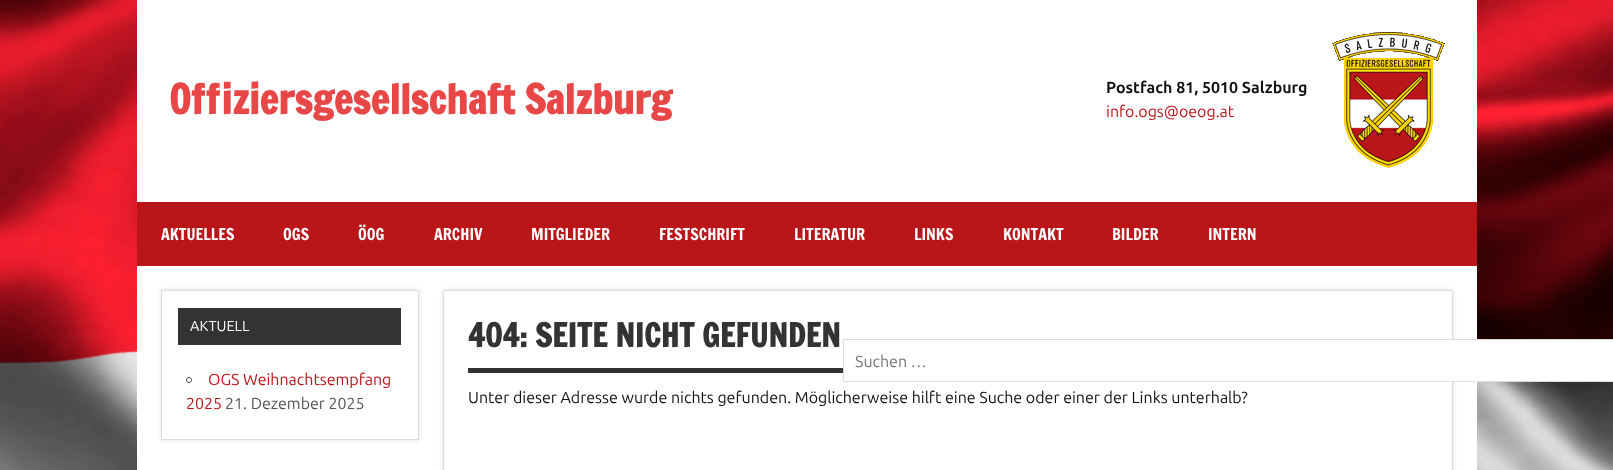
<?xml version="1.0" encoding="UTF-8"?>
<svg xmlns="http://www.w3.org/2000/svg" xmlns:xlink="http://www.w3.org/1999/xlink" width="1613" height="470">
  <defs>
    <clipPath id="clip1"><path d="M 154 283 h 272 v 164 h -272 z m 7 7 h 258 v 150 h -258 z" clip-rule="evenodd" /></clipPath>
    <clipPath id="clip2"><path d="M 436 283 h 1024 v 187 h -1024 z m 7 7 h 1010 v 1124 h -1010 z" clip-rule="evenodd" /></clipPath>
  </defs>
  <rect width="100%" height="100%" fill="#ffffff" />
  <image x="0" y="0" width="1613" height="470" xlink:href="image1.png" />
  <rect x="137" width="1340" height="470" fill="#ffffff" />
  <image x="1332" y="32" width="113" height="136" xlink:href="image2.png" />
  <rect x="137" y="202" width="1340" height="64" fill="#ba1519" />
  <g clip-path="url(#clip1)">
    <rect x="161" y="290" width="258" height="150" fill="#dddddd" filter="blur(2px)" />
  </g>
  <rect x="161.5" y="290.5" width="257" height="149" fill="none" stroke="#dddddd" />
  <rect x="178" y="308" width="223" height="37" fill="#333333" />
  <circle cx="189" cy="380" r="2.5" fill="none" stroke="#555555" />
  <g clip-path="url(#clip2)">
    <rect x="443" y="290" width="1010" height="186" fill="#dddddd" filter="blur(2px)" />
  </g>
  <rect x="443.5" y="290.5" width="1009" height="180" fill="none" stroke="#dddddd" />
  <rect x="468" y="368" width="375" height="5" fill="#333333" />
  <rect x="1452" y="340" width="161" height="41" fill="#ffffff" />
  <rect x="843.5" y="339.5" width="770" height="42" fill="none" stroke="#dddddd" />
  <text x="169" y="114" style="font-family: Francois One; font-size: 40px; font-weight: bold; fill: #e84747">Offiziersgesellschaft Salzburg</text>
  <text x="1106" y="93" style="font-family: Ubuntu; font-size: 16px; font-weight: bold; fill: #111111">Postfach 81, 5010 Salzburg</text>
  <text x="1106" y="117" style="font-family: Ubuntu; font-size: 16px; fill: #ba1519">info.ogs@oeog.at</text>
  <text x="161" y="240" style="font-family: Francois One; font-size: 16px; fill: #ffffff">AKTUELLES</text>
  <text x="283" y="240" style="font-family: Francois One; font-size: 16px; fill: #ffffff">OGS</text>
  <text x="358" y="240" style="font-family: Francois One; font-size: 16px; fill: #ffffff">ÖOG</text>
  <text x="434" y="240" style="font-family: Francois One; font-size: 16px; fill: #ffffff">ARCHIV</text>
  <text x="531" y="240" style="font-family: Francois One; font-size: 16px; fill: #ffffff">MITGLIEDER</text>
  <text x="659" y="240" style="font-family: Francois One; font-size: 16px; fill: #ffffff">FESTSCHRIFT</text>
  <text x="794" y="240" style="font-family: Francois One; font-size: 16px; fill: #ffffff">LITERATUR</text>
  <text x="914" y="240" style="font-family: Francois One; font-size: 16px; fill: #ffffff">LINKS</text>
  <text x="1003" y="240" style="font-family: Francois One; font-size: 16px; fill: #ffffff">KONTAKT</text>
  <text x="1112" y="240" style="font-family: Francois One; font-size: 16px; fill: #ffffff">BILDER</text>
  <text x="1208" y="240" style="font-family: Francois One; font-size: 16px; fill: #ffffff">INTERN</text>
  <text x="190" y="331" style="font-family: Ubuntu; font-size: 14.5px; fill: #ffffff">AKTUELL</text>
  <text x="208" y="385" style="font-family: Ubuntu; font-size: 16px; fill: #ba1519">OGS Weihnachtsempfang</text>
  <text x="186" y="409" style="font-family: Ubuntu; font-size: 16px; fill: #ba1519">2025</text>
  <text x="225" y="409" style="font-family: Ubuntu; font-size: 16px; fill: #555555">21. Dezember 2025</text>
  <text x="468" y="347" style="font-family: Francois One; font-size: 32px; font-weight: bold; fill: #333333">404: SEITE NICHT GEFUNDEN</text>
  <text x="855" y="367" style="font-family: Ubuntu; font-size: 16px; fill: #757575">Suchen …</text>
  <text x="468" y="403" style="font-family: Ubuntu; font-size: 16px; fill: #111111">Unter dieser Adresse wurde nichts gefunden. Möglicherweise hilft eine Suche oder einer der Links unterhalb?</text>
</svg>
